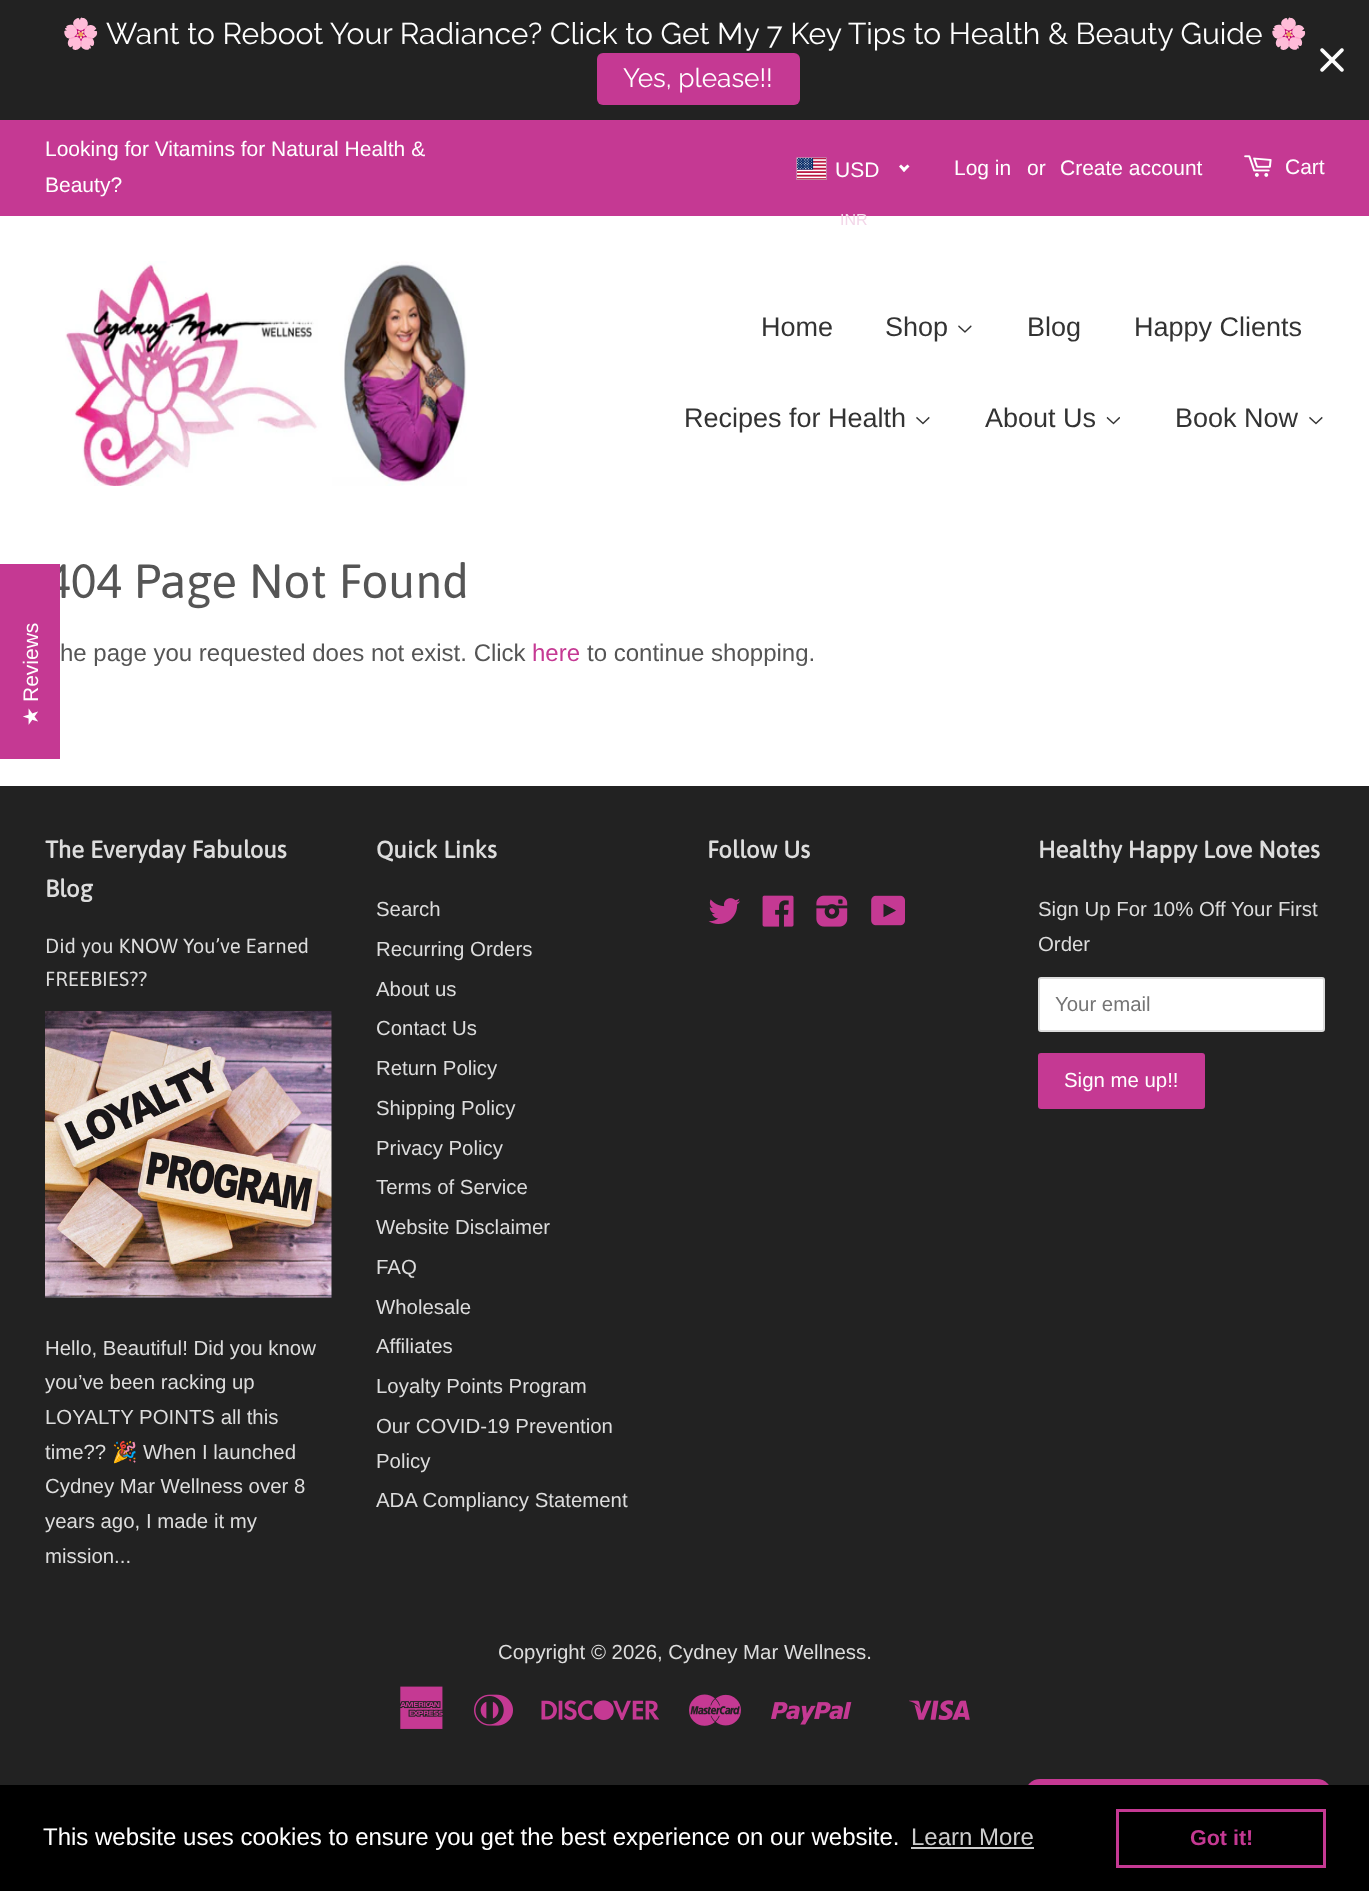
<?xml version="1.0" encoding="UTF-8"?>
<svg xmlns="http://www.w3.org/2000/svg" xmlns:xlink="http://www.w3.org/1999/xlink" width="1369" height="1891">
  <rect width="100%" height="100%" fill="#222222" />
  <rect y="216" width="1369" height="570" fill="#ffffff" />
  <rect x="597" y="53" width="203" height="52" rx="6" fill="#c53993" />
  <image x="1320" y="48" width="24" height="24" xlink:href="image1.png" />
  <rect y="120" width="1369" height="96" fill="#c53993" />
  <image x="796" y="157" width="31" height="23" xlink:href="image2.png" />
  <path d="M 907.5 164.5 l 2 2 l -5.5 5.5 l -2 -2.5 z" fill="#ffffff" />
  <path d="M 901 164.5 l 5 5 l -2 2.5 l -5 -5.5 z" fill="#ffffff" />
  <image x="1244" y="155" width="28" height="22" xlink:href="image3.png" />
  <image x="65" y="261" width="402" height="225" xlink:href="image4.png" />
  <image x="958" y="325" width="14" height="8" xlink:href="image5.png" />
  <image x="916" y="416" width="14" height="9" xlink:href="image6.png" />
  <image x="1106" y="416" width="14" height="9" xlink:href="image7.png" />
  <image x="1309" y="416" width="14" height="9" xlink:href="image6.png" />
  <image x="45" y="1011" width="287" height="287" xlink:href="image8.png" />
  <image x="708" y="898" width="32" height="26" xlink:href="image9.png" />
  <image x="762" y="895" width="32" height="32" xlink:href="image10.png" />
  <image x="816" y="895" width="32" height="32" xlink:href="image11.png" />
  <image x="871" y="895" width="34" height="31" xlink:href="image12.png" />
  <rect x="1039" y="978" width="285" height="53" rx="2" fill="#ffffff" stroke="#dddddd" stroke-width="2" />
  <rect x="1038" y="1053" width="167" height="56" rx="3" fill="#c53993" />
  <image x="400" y="1686" width="43" height="43" xlink:href="image13.png" />
  <image x="474" y="1694" width="39" height="32" xlink:href="image14.png" />
  <image x="541" y="1700" width="119" height="20" xlink:href="image15.png" />
  <image x="689" y="1694" width="52" height="32" xlink:href="image16.png" />
  <image x="771" y="1702" width="81" height="23" xlink:href="image17.png" />
  <image x="909" y="1700" width="61" height="20" xlink:href="image18.png" />
  <rect x="1025" y="1779" width="307" height="75" rx="15" fill="#c53993" />
  <rect y="1785" width="1369" height="106" fill="#000000" />
  <rect x="911" y="1847" width="123" height="2" fill="#cccccc" />
  <rect x="1117.5" y="1810.5" width="207" height="56" fill="none" stroke="#c53993" stroke-width="3" />
  <text x="62" y="44" style="font-family: Noto Color Emoji; font-size: 30px; fill: #ffffff">🌸</text>
  <text x="106" y="44" style="font-family: Raleway; font-size: 30px; font-weight: 100; fill: #ffffff">Want to Reboot Your Radiance? Click to Get My 7 Key Tips to Health &amp; Beauty Guide</text>
  <text x="1270" y="44" style="font-family: Noto Color Emoji; font-size: 30px; fill: #ffffff">🌸</text>
  <text x="623" y="87" style="font-family: Raleway; font-size: 26.25px; font-weight: 100; fill: #ffffff">Yes, please!!</text>
  <text x="45" y="156" style="font-family: Liberation Sans; font-size: 21px; fill: #ffffff">Looking for Vitamins for Natural Health &amp;</text>
  <text x="45" y="192" style="font-family: Liberation Sans; font-size: 21px; fill: #ffffff">Beauty?</text>
  <text x="835" y="177" style="font-family: Liberation Sans; font-size: 21px; fill: #ffffff">USD</text>
  <text x="840" y="225" style="font-family: Liberation Sans; font-size: 16px; fill: #f3d7e9">INR</text>
  <text x="954" y="175" style="font-family: Liberation Sans; font-size: 21px; fill: #ffffff">Log in</text>
  <text x="1027" y="175" style="font-family: Liberation Sans; font-size: 21px; fill: #ffffff">or</text>
  <text x="1060" y="175" style="font-family: Liberation Sans; font-size: 21px; fill: #ffffff">Create account</text>
  <text x="1285" y="174" style="font-family: Liberation Sans; font-size: 21px; fill: #ffffff">Cart</text>
  <text x="761" y="336" style="font-family: Liberation Sans; font-size: 27px; fill: #333333">Home</text>
  <text x="885" y="336" style="font-family: Liberation Sans; font-size: 27px; fill: #333333">Shop</text>
  <text x="1027" y="336" style="font-family: Liberation Sans; font-size: 27px; fill: #333333">Blog</text>
  <text x="1134" y="336" style="font-family: Liberation Sans; font-size: 27px; fill: #333333">Happy Clients</text>
  <text x="684" y="427" style="font-family: Liberation Sans; font-size: 27px; fill: #333333">Recipes for Health</text>
  <text x="985" y="427" style="font-family: Liberation Sans; font-size: 27px; fill: #333333">About Us</text>
  <text x="1175" y="427" style="font-family: Liberation Sans; font-size: 27px; fill: #333333">Book Now</text>
  <text x="45" y="598" style="font-family: Asap; font-size: 48px; fill: #555555">404 Page Not Found</text>
  <rect y="564" width="60" height="195" fill="#c53993" />
  <text x="38" y="702" transform="rotate(-90 38 702)" style="font-family: Liberation Sans; font-size: 21px; fill: #ffffff">Reviews</text>
  <text x="38" y="726" transform="rotate(-90 38 726)" style="font-family: DejaVu Sans; font-size: 21px; fill: #ffffff">★</text>
  <text x="60" y="661" style="font-family: Liberation Sans; font-size: 24px; fill: #555555">he page you requested does not exist. Click</text>
  <text x="532" y="661" style="font-family: Liberation Sans; font-size: 24px; fill: #c53993">here</text>
  <text x="587" y="661" style="font-family: Liberation Sans; font-size: 24px; fill: #555555">to continue shopping.</text>
  <text x="45" y="858" style="font-family: Asap; font-size: 24px; font-weight: bold; fill: #dddddd">The Everyday Fabulous</text>
  <text x="45" y="897" style="font-family: Asap; font-size: 24px; font-weight: bold; fill: #dddddd">Blog</text>
  <text x="45" y="953" style="font-family: Asap; font-size: 20.4px; fill: #dddddd">Did you KNOW You’ve Earned</text>
  <text x="45" y="986" style="font-family: Asap; font-size: 20.4px; fill: #dddddd">FREEBIES??</text>
  <text x="45" y="1355" style="font-family: Liberation Sans; font-size: 20.4px; fill: #dddddd">Hello, Beautiful! Did you know</text>
  <text x="45" y="1389" style="font-family: Liberation Sans; font-size: 20.4px; fill: #dddddd">you’ve been racking up</text>
  <text x="45" y="1424" style="font-family: Liberation Sans; font-size: 20.4px; fill: #dddddd">LOYALTY POINTS all this</text>
  <text x="45" y="1459" style="font-family: Liberation Sans; font-size: 20.4px; fill: #dddddd">time??</text>
  <text x="112" y="1459" style="font-family: Noto Color Emoji; font-size: 20.4px; fill: #dddddd">🎉</text>
  <text x="143" y="1459" style="font-family: Liberation Sans; font-size: 20.4px; fill: #dddddd">When I launched</text>
  <text x="45" y="1493" style="font-family: Liberation Sans; font-size: 20.4px; fill: #dddddd">Cydney Mar Wellness over 8</text>
  <text x="45" y="1528" style="font-family: Liberation Sans; font-size: 20.4px; fill: #dddddd">years ago, I made it my</text>
  <text x="45" y="1563" style="font-family: Liberation Sans; font-size: 20.4px; fill: #dddddd">mission...</text>
  <text x="376" y="858" style="font-family: Asap; font-size: 24px; font-weight: bold; fill: #dddddd">Quick Links</text>
  <text x="376" y="916" style="font-family: Liberation Sans; font-size: 20.4px; fill: #dddddd">Search</text>
  <text x="376" y="956" style="font-family: Liberation Sans; font-size: 20.4px; fill: #dddddd">Recurring Orders</text>
  <text x="376" y="996" style="font-family: Liberation Sans; font-size: 20.4px; fill: #dddddd">About us</text>
  <text x="376" y="1035" style="font-family: Liberation Sans; font-size: 20.4px; fill: #dddddd">Contact Us</text>
  <text x="376" y="1075" style="font-family: Liberation Sans; font-size: 20.4px; fill: #dddddd">Return Policy</text>
  <text x="376" y="1115" style="font-family: Liberation Sans; font-size: 20.4px; fill: #dddddd">Shipping Policy</text>
  <text x="376" y="1155" style="font-family: Liberation Sans; font-size: 20.4px; fill: #dddddd">Privacy Policy</text>
  <text x="376" y="1194" style="font-family: Liberation Sans; font-size: 20.4px; fill: #dddddd">Terms of Service</text>
  <text x="376" y="1234" style="font-family: Liberation Sans; font-size: 20.4px; fill: #dddddd">Website Disclaimer</text>
  <text x="376" y="1274" style="font-family: Liberation Sans; font-size: 20.4px; fill: #dddddd">FAQ</text>
  <text x="376" y="1314" style="font-family: Liberation Sans; font-size: 20.4px; fill: #dddddd">Wholesale</text>
  <text x="376" y="1353" style="font-family: Liberation Sans; font-size: 20.4px; fill: #dddddd">Affiliates</text>
  <text x="376" y="1393" style="font-family: Liberation Sans; font-size: 20.4px; fill: #dddddd">Loyalty Points Program</text>
  <text x="376" y="1433" style="font-family: Liberation Sans; font-size: 20.4px; fill: #dddddd">Our COVID-19 Prevention</text>
  <text x="376" y="1468" style="font-family: Liberation Sans; font-size: 20.4px; fill: #dddddd">Policy</text>
  <text x="376" y="1507" style="font-family: Liberation Sans; font-size: 20.4px; fill: #dddddd">ADA Compliancy Statement</text>
  <text x="707" y="858" style="font-family: Asap; font-size: 24px; font-weight: bold; fill: #dddddd">Follow Us</text>
  <text x="1038" y="858" style="font-family: Asap; font-size: 24px; font-weight: bold; fill: #dddddd">Healthy Happy Love Notes</text>
  <text x="1038" y="916" style="font-family: Liberation Sans; font-size: 20.4px; fill: #dddddd">Sign Up For 10% Off Your First</text>
  <text x="1038" y="951" style="font-family: Liberation Sans; font-size: 20.4px; fill: #dddddd">Order</text>
  <text x="1055" y="1011" style="font-family: Liberation Sans; font-size: 20.4px; fill: #757575">Your email</text>
  <text x="1064" y="1087" style="font-family: Liberation Sans; font-size: 20.4px; fill: #ffffff">Sign me up!!</text>
  <text x="498" y="1659" style="font-family: Liberation Sans; font-size: 20.4px; fill: #dddddd">Copyright © 2026, Cydney Mar Wellness.</text>
  <text x="43" y="1845" style="font-family: Liberation Sans; font-size: 24px; fill: #ffffff">This website uses cookies to ensure you get the best experience on our website.</text>
  <text x="911" y="1845" style="font-family: Liberation Sans; font-size: 24px; fill: #cccccc">Learn More</text>
  <text x="1190" y="1845" style="font-family: Liberation Sans; font-size: 21.5px; font-weight: bold; fill: #c53993">Got it!</text>
</svg>
